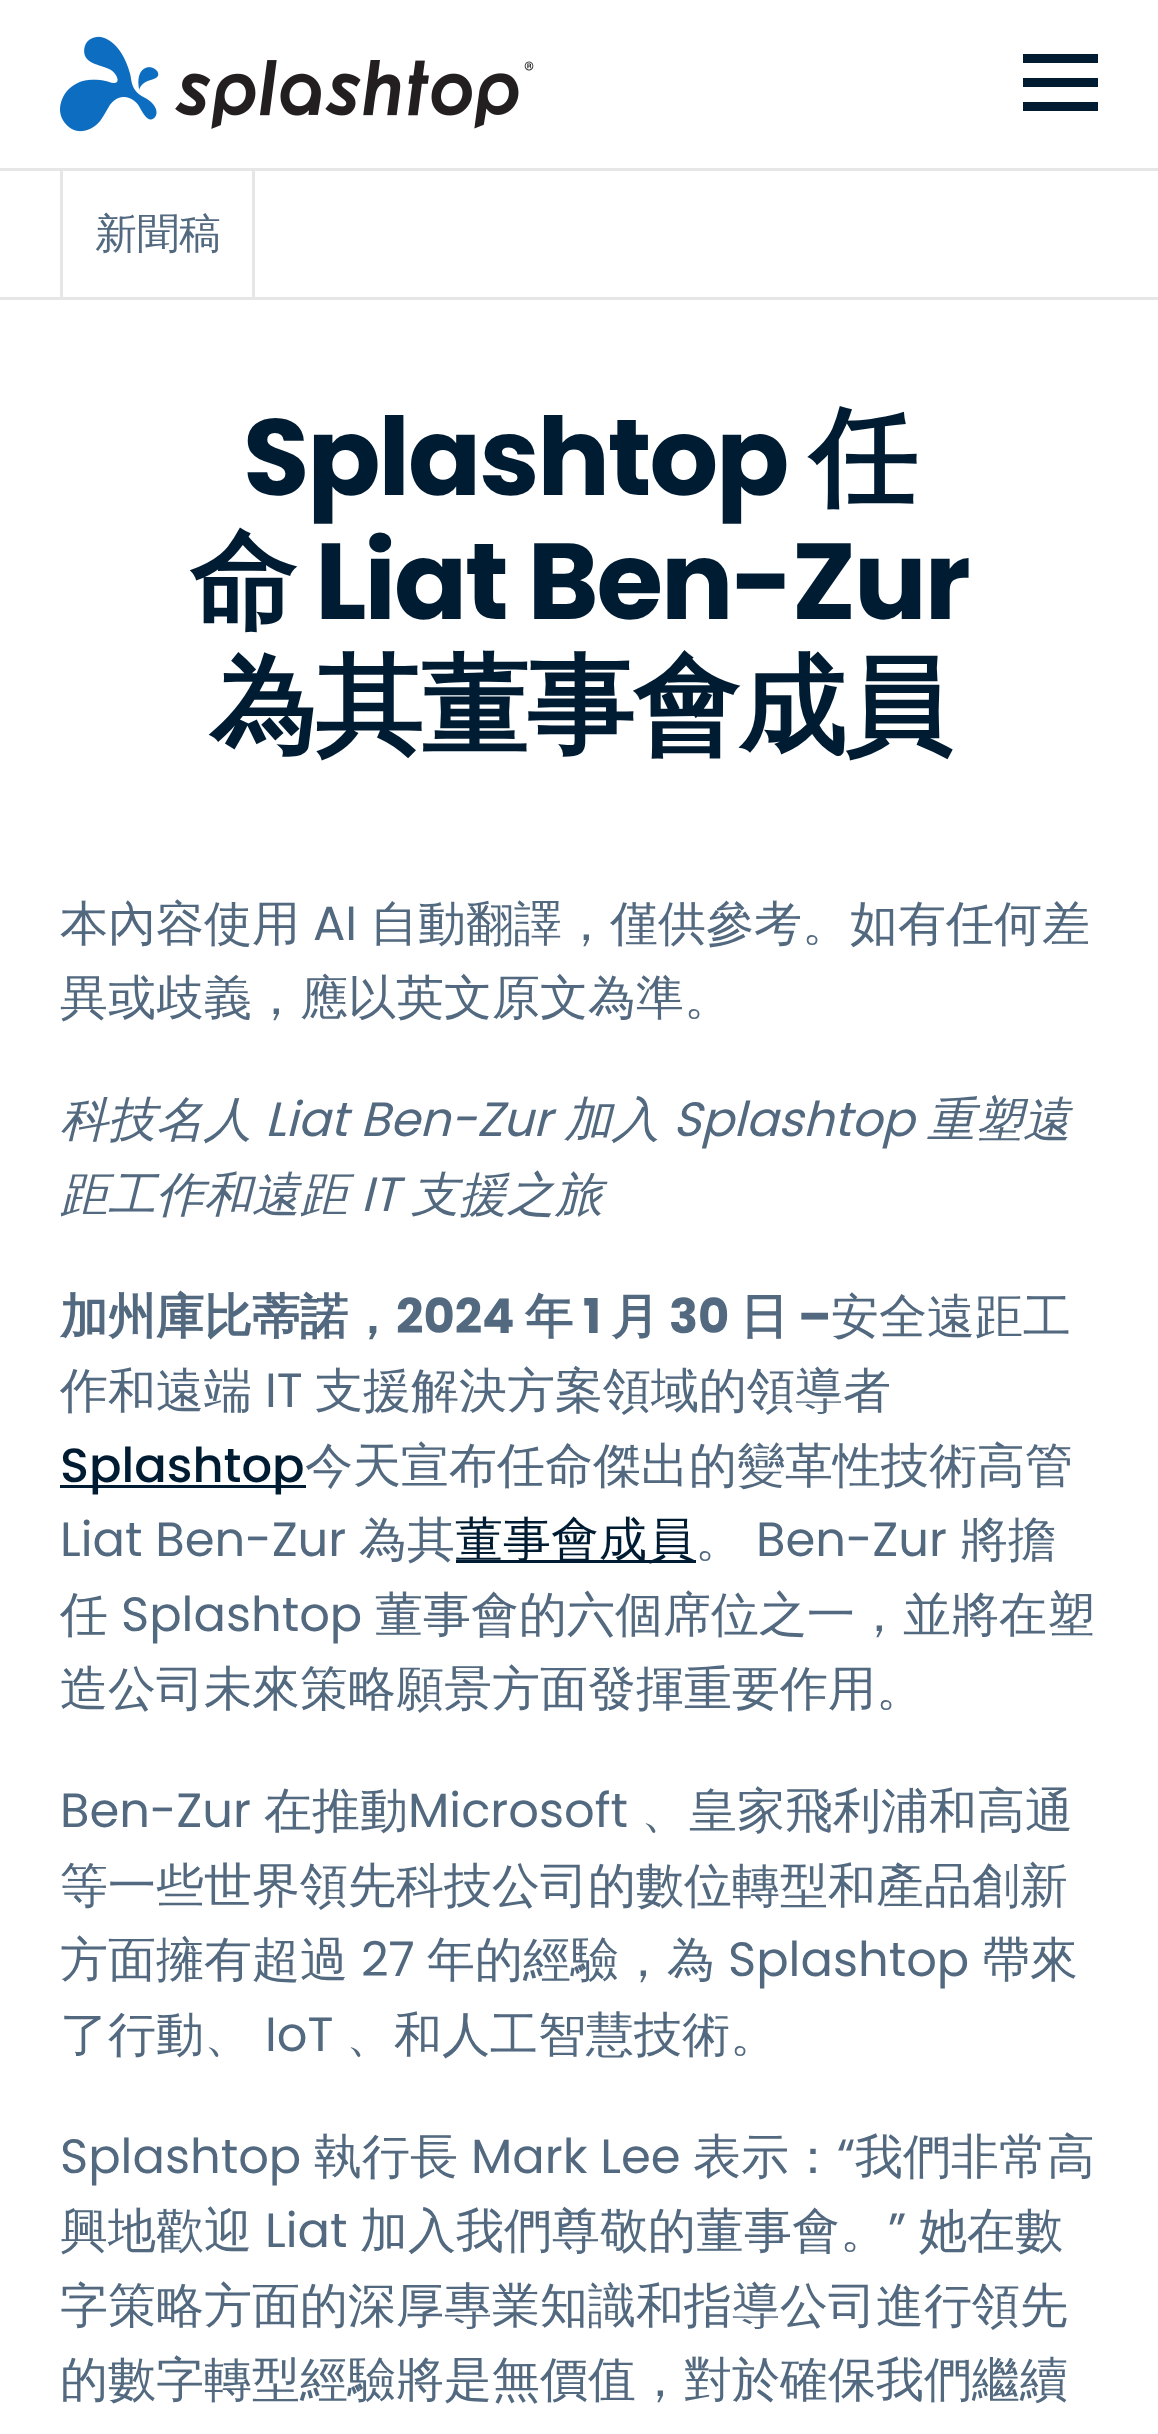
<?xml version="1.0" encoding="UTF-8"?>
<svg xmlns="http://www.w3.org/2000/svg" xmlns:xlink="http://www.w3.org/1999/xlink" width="1158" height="2434">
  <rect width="100%" height="100%" fill="#ffffff" />
  <image x="60" y="36" width="474" height="96" xlink:href="image1.png" />
  <rect x="1023" y="54" width="75" height="9" fill="#001c33" />
  <rect x="1023" y="78" width="75" height="9" fill="#001c33" />
  <rect x="1023" y="102" width="75" height="9" fill="#001c33" />
  <rect x="-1.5" y="169.5" width="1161" height="129" fill="none" stroke="#e6e6e6" stroke-width="3" />
  <rect x="60" y="171" width="3" height="126" fill="#e6e6e6" />
  <rect x="252" y="171" width="3" height="126" fill="#e6e6e6" />
  <rect x="60" y="1485" width="246" height="3" fill="#001c33" />
  <rect x="456" y="1560" width="240" height="3" fill="#001c33" />
  <text x="95" y="248" style="font-family: WenQuanYi Zen Hei; font-size: 42px; font-weight: 500; fill: #52697f">新聞稿</text>
  <text x="243" y="495" style="font-family: Poppins; font-size: 108px; font-weight: bold; letter-spacing: -2.2px; fill: #001c33">Splashtop</text>
  <text x="809" y="495" style="font-family: WenQuanYi Zen Hei; font-size: 108px; font-weight: bold; letter-spacing: -2.2px; fill: #001c33">任</text>
  <text x="189" y="619" style="font-family: WenQuanYi Zen Hei; font-size: 108px; font-weight: bold; letter-spacing: -2.2px; fill: #001c33">命</text>
  <text x="315" y="619" style="font-family: Poppins; font-size: 108px; font-weight: bold; letter-spacing: -2.2px; fill: #001c33">Liat Ben-Zur</text>
  <text x="209" y="743" style="font-family: WenQuanYi Zen Hei; font-size: 108px; font-weight: bold; letter-spacing: -2.2px; fill: #001c33">為其董事會成員</text>
  <text x="60" y="940" style="font-family: WenQuanYi Zen Hei; font-size: 48px; font-weight: 500; fill: #52697f">本內容使用</text>
  <text x="313" y="940" style="font-family: Poppins; font-size: 48px; fill: #52697f">AI</text>
  <text x="370" y="940" style="font-family: WenQuanYi Zen Hei; font-size: 48px; font-weight: 500; fill: #52697f">自動翻譯，僅供參考。如有任何差</text>
  <text x="60" y="1014" style="font-family: WenQuanYi Zen Hei; font-size: 48px; font-weight: 500; fill: #52697f">異或歧義，應以英文原文為準。</text>
  <text x="60" y="1136" style="font-family: WenQuanYi Zen Hei; font-size: 48px; font-weight: 500; font-style: italic; fill: #52697f">科技名人</text>
  <text x="265" y="1136" style="font-family: Poppins; font-size: 48px; font-style: italic; fill: #52697f">Liat Ben-Zur</text>
  <text x="564" y="1136" style="font-family: WenQuanYi Zen Hei; font-size: 48px; font-weight: 500; font-style: italic; fill: #52697f">加入</text>
  <text x="673" y="1136" style="font-family: Poppins; font-size: 48px; font-style: italic; fill: #52697f">Splashtop</text>
  <text x="927" y="1136" style="font-family: WenQuanYi Zen Hei; font-size: 48px; font-weight: 500; font-style: italic; fill: #52697f">重塑遠</text>
  <text x="60" y="1211" style="font-family: WenQuanYi Zen Hei; font-size: 48px; font-weight: 500; font-style: italic; fill: #52697f">距工作和遠距</text>
  <text x="361" y="1211" style="font-family: Poppins; font-size: 48px; font-style: italic; fill: #52697f">IT</text>
  <text x="411" y="1211" style="font-family: WenQuanYi Zen Hei; font-size: 48px; font-weight: 500; font-style: italic; fill: #52697f">支援之旅</text>
  <text x="60" y="1333" style="font-family: WenQuanYi Zen Hei; font-size: 48px; font-weight: bold; fill: #52697f">加州庫比蒂諾，</text>
  <text x="396" y="1333" style="font-family: Poppins; font-size: 48px; font-weight: bold; fill: #52697f">2024</text>
  <text x="525" y="1333" style="font-family: WenQuanYi Zen Hei; font-size: 48px; font-weight: bold; fill: #52697f">年</text>
  <text x="583" y="1333" style="font-family: Poppins; font-size: 48px; font-weight: bold; fill: #52697f">1</text>
  <text x="611" y="1333" style="font-family: WenQuanYi Zen Hei; font-size: 48px; font-weight: bold; fill: #52697f">月</text>
  <text x="669" y="1333" style="font-family: Poppins; font-size: 48px; font-weight: bold; fill: #52697f">30</text>
  <text x="740" y="1333" style="font-family: WenQuanYi Zen Hei; font-size: 48px; font-weight: bold; fill: #52697f">日</text>
  <text x="798" y="1333" style="font-family: Poppins; font-size: 48px; font-weight: bold; fill: #52697f">–</text>
  <text x="831" y="1333" style="font-family: WenQuanYi Zen Hei; font-size: 48px; font-weight: 500; fill: #52697f">安全遠距工</text>
  <text x="60" y="1407" style="font-family: WenQuanYi Zen Hei; font-size: 48px; font-weight: 500; fill: #52697f">作和遠端</text>
  <text x="265" y="1407" style="font-family: Poppins; font-size: 48px; fill: #52697f">IT</text>
  <text x="315" y="1407" style="font-family: WenQuanYi Zen Hei; font-size: 48px; font-weight: 500; fill: #52697f">支援解決方案領域的領導者</text>
  <text x="60" y="1482" style="font-family: Poppins; font-size: 48px; font-weight: 500; fill: #001c33">Splashtop</text>
  <text x="305" y="1482" style="font-family: WenQuanYi Zen Hei; font-size: 48px; font-weight: 500; fill: #52697f">今天宣布任命傑出的變革性技術高管</text>
  <text x="60" y="1556" style="font-family: Poppins; font-size: 48px; fill: #52697f">Liat Ben-Zur</text>
  <text x="359" y="1556" style="font-family: WenQuanYi Zen Hei; font-size: 48px; font-weight: 500; fill: #52697f">為其</text>
  <text x="455" y="1556" style="font-family: WenQuanYi Zen Hei; font-size: 48px; font-weight: 500; fill: #001c33">董事會成員</text>
  <text x="695" y="1556" style="font-family: WenQuanYi Zen Hei; font-size: 48px; font-weight: 500; fill: #52697f">。</text>
  <text x="756" y="1556" style="font-family: Poppins; font-size: 48px; fill: #52697f">Ben-Zur</text>
  <text x="960" y="1556" style="font-family: WenQuanYi Zen Hei; font-size: 48px; font-weight: 500; fill: #52697f">將擔</text>
  <text x="60" y="1631" style="font-family: WenQuanYi Zen Hei; font-size: 48px; font-weight: 500; fill: #52697f">任</text>
  <text x="121" y="1631" style="font-family: Poppins; font-size: 48px; fill: #52697f">Splashtop</text>
  <text x="375" y="1631" style="font-family: WenQuanYi Zen Hei; font-size: 48px; font-weight: 500; fill: #52697f">董事會的六個席位之一，並將在塑</text>
  <text x="60" y="1705" style="font-family: WenQuanYi Zen Hei; font-size: 48px; font-weight: 500; fill: #52697f">造公司未來策略願景方面發揮重要作用。</text>
  <text x="60" y="1827" style="font-family: Poppins; font-size: 48px; fill: #52697f">Ben-Zur</text>
  <text x="264" y="1827" style="font-family: WenQuanYi Zen Hei; font-size: 48px; font-weight: 500; fill: #52697f">在推動</text>
  <text x="408" y="1827" style="font-family: Poppins; font-size: 48px; fill: #52697f">Microsoft</text>
  <text x="641" y="1827" style="font-family: WenQuanYi Zen Hei; font-size: 48px; font-weight: 500; fill: #52697f">、皇家飛利浦和高通</text>
  <text x="60" y="1902" style="font-family: WenQuanYi Zen Hei; font-size: 48px; font-weight: 500; fill: #52697f">等一些世界領先科技公司的數位轉型和產品創新</text>
  <text x="60" y="1976" style="font-family: WenQuanYi Zen Hei; font-size: 48px; font-weight: 500; fill: #52697f">方面擁有超過</text>
  <text x="361" y="1976" style="font-family: Poppins; font-size: 48px; fill: #52697f">27</text>
  <text x="427" y="1976" style="font-family: WenQuanYi Zen Hei; font-size: 48px; font-weight: 500; fill: #52697f">年的經驗，為</text>
  <text x="728" y="1976" style="font-family: Poppins; font-size: 48px; fill: #52697f">Splashtop</text>
  <text x="982" y="1976" style="font-family: WenQuanYi Zen Hei; font-size: 48px; font-weight: 500; fill: #52697f">帶來</text>
  <text x="60" y="2051" style="font-family: WenQuanYi Zen Hei; font-size: 48px; font-weight: 500; fill: #52697f">了行動、</text>
  <text x="265" y="2051" style="font-family: Poppins; font-size: 48px; fill: #52697f">IoT</text>
  <text x="346" y="2051" style="font-family: WenQuanYi Zen Hei; font-size: 48px; font-weight: 500; fill: #52697f">、和人工智慧技術。</text>
  <text x="60" y="2173" style="font-family: Poppins; font-size: 48px; fill: #52697f">Splashtop</text>
  <text x="314" y="2173" style="font-family: WenQuanYi Zen Hei; font-size: 48px; font-weight: 500; fill: #52697f">執行長</text>
  <text x="471" y="2173" style="font-family: Poppins; font-size: 48px; fill: #52697f">Mark Lee</text>
  <text x="693" y="2173" style="font-family: WenQuanYi Zen Hei; font-size: 48px; font-weight: 500; fill: #52697f">表示：</text>
  <text x="837" y="2173" style="font-family: Poppins; font-size: 48px; fill: #52697f">“</text>
  <text x="855" y="2173" style="font-family: WenQuanYi Zen Hei; font-size: 48px; font-weight: 500; fill: #52697f">我們非常高</text>
  <text x="60" y="2247" style="font-family: WenQuanYi Zen Hei; font-size: 48px; font-weight: 500; fill: #52697f">興地歡迎</text>
  <text x="265" y="2247" style="font-family: Poppins; font-size: 48px; fill: #52697f">Liat</text>
  <text x="360" y="2247" style="font-family: WenQuanYi Zen Hei; font-size: 48px; font-weight: 500; fill: #52697f">加入我們尊敬的董事會。</text>
  <text x="888" y="2247" style="font-family: Poppins; font-size: 48px; fill: #52697f">”</text>
  <text x="919" y="2247" style="font-family: WenQuanYi Zen Hei; font-size: 48px; font-weight: 500; fill: #52697f">她在數</text>
  <text x="60" y="2322" style="font-family: WenQuanYi Zen Hei; font-size: 48px; font-weight: 500; fill: #52697f">字策略方面的深厚專業知識和指導公司進行領先</text>
  <text x="60" y="2396" style="font-family: WenQuanYi Zen Hei; font-size: 48px; font-weight: 500; fill: #52697f">的數字轉型經驗將是無價值，對於確保我們繼續</text>
</svg>
